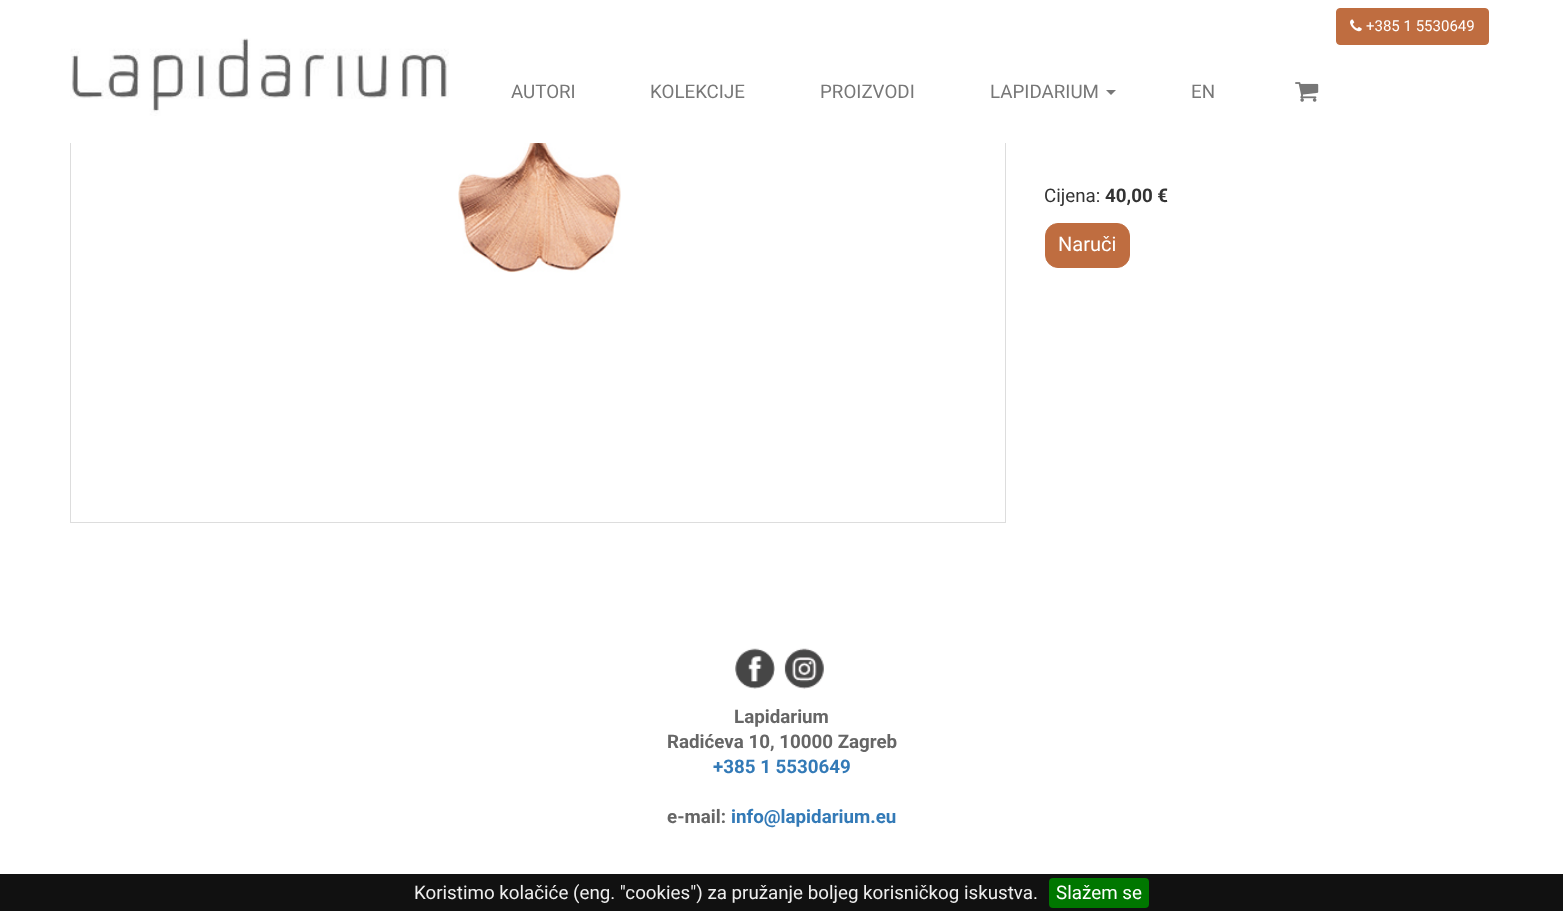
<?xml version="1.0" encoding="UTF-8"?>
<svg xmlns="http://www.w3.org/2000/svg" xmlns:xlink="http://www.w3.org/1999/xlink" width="1563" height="911">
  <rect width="100%" height="100%" fill="#ffffff" />
  <rect x="70.5" y="-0.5" width="935" height="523" fill="none" stroke="#dddddd" />
  <rect x="70" width="936" height="143" fill="#ffffff" />
  <rect x="1336.5" y="8.5" width="152" height="36" rx="3.5" fill="#bf6d40" stroke="#bf6d40" />
  <image x="1350" y="19" width="12" height="13" xlink:href="image1.png" />
  <image x="70" y="38" width="379" height="78" xlink:href="image2.png" />
  <path d="M 1106 90 h 10 l -5 5 z" fill="#777777" />
  <image x="1295" y="82" width="24" height="20" xlink:href="image3.png" />
  <image x="458" y="143" width="163" height="130" xlink:href="image4.png" />
  <rect x="1045.5" y="223.5" width="84" height="44" rx="12.5" fill="#bf6d40" stroke="#bf6d40" />
  <image x="735" y="648" width="40" height="41" xlink:href="image5.png" />
  <image x="784" y="648" width="40" height="41" xlink:href="image6.png" />
  <rect y="874" width="1563" height="37" fill="#111111" />
  <rect x="1049" y="878" width="100" height="30" rx="4" fill="#007700" />
  <text x="1366" y="31" style="font-family: Roboto; font-size: 15px; fill: #ffffff">+385 1 5530649</text>
  <text x="511" y="98" style="font-family: Roboto; font-size: 18.75px; fill: #777777">AUTORI</text>
  <text x="650" y="98" style="font-family: Roboto; font-size: 18.75px; fill: #777777">KOLEKCIJE</text>
  <text x="820" y="98" style="font-family: Roboto; font-size: 18.75px; fill: #777777">PROIZVODI</text>
  <text x="990" y="98" style="font-family: Roboto; font-size: 18.75px; fill: #777777">LAPIDARIUM</text>
  <text x="1191" y="98" style="font-family: Roboto; font-size: 18.75px; fill: #777777">EN</text>
  <text x="1044" y="202" style="font-family: Roboto; font-size: 18.75px; fill: #333333">Cijena:</text>
  <text x="1105" y="202" style="font-family: Roboto; font-size: 18.75px; font-weight: bold; fill: #333333">40,00 €</text>
  <text x="1058" y="251" style="font-family: Roboto; font-size: 20px; fill: #ffffff">Naruči</text>
  <text x="734" y="723" style="font-family: Roboto; font-size: 18.75px; font-weight: bold; fill: #666666">Lapidarium</text>
  <text x="667" y="748" style="font-family: Roboto; font-size: 18.75px; font-weight: bold; fill: #666666">Radićeva 10, 10000 Zagreb</text>
  <text x="713" y="773" style="font-family: Roboto; font-size: 18.75px; font-weight: bold; fill: #337ab7">+385 1 5530649</text>
  <text x="667" y="823" style="font-family: Roboto; font-size: 18.75px; font-weight: bold; fill: #666666">e-mail:</text>
  <text x="731" y="823" style="font-family: Roboto; font-size: 18.75px; font-weight: bold; fill: #337ab7">info@lapidarium.eu</text>
  <text x="414" y="899" style="font-family: Roboto; font-size: 18.75px; fill: #eeeeee">Koristimo kolačiće (eng. "cookies") za pružanje boljeg korisničkog iskustva.</text>
  <text x="1056" y="899" style="font-family: Roboto; font-size: 18.75px; fill: #ffffff">Slažem se</text>
</svg>
